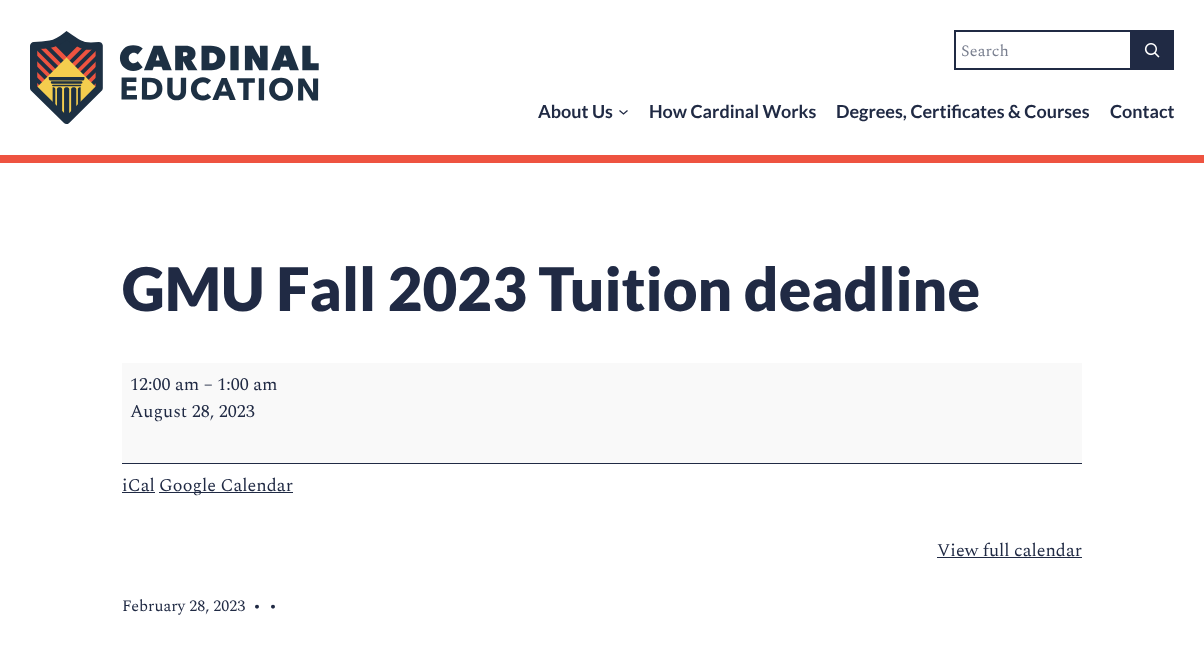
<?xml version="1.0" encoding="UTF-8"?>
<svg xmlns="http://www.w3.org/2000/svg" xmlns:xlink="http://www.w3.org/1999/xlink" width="1204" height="657">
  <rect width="100%" height="100%" fill="#ffffff" />
  <rect y="155" width="1204" height="8" fill="#ee5340" />
  <image x="30" y="31" width="289" height="93" xlink:href="image1.png" />
  <rect x="954.5" y="30.5" width="219" height="39" fill="none" stroke="#202a44" />
  <rect x="955.5" y="31.5" width="175" height="37" fill="none" stroke="#202a44" />
  <rect x="1131" y="31" width="42" height="38" fill="#202a44" />
  <image x="1144" y="43" width="16" height="15" xlink:href="image2.png" />
  <path d="M 619.5 110.5 l 4 3.5 l 4 -3.5" fill="none" stroke="#202a44" stroke-width="1.3" />
  <rect x="122" y="363" width="960" height="100" fill="#f9f9f9" />
  <rect x="122" y="463" width="960" height="1" fill="#202a44" />
  <rect x="122" y="492" width="33" height="1" fill="#202a44" />
  <rect x="159" y="492" width="134" height="1" fill="#202a44" />
  <rect x="937" y="557" width="145" height="1" fill="#202a44" />
  <text x="961" y="56" style="font-family: Spectral; font-size: 16px; fill: #797f8f">Search</text>
  <text x="538" y="118" style="font-family: Lato; font-size: 18px; font-weight: bold; fill: #202a44">About Us</text>
  <text x="649" y="118" style="font-family: Lato; font-size: 18px; font-weight: bold; fill: #202a44">How Cardinal Works</text>
  <text x="836" y="118" style="font-family: Lato; font-size: 18px; font-weight: bold; fill: #202a44">Degrees, Certificates &amp; Courses</text>
  <text x="1110" y="118" style="font-family: Lato; font-size: 18px; font-weight: bold; fill: #202a44">Contact</text>
  <text x="122" y="311" style="font-family: Lato; font-size: 60px; font-weight: 900; fill: #202a44">GMU Fall 2023 Tuition deadline</text>
  <text x="130" y="390" style="font-family: Spectral; font-size: 18px; fill: #202a44">12:00 am – 1:00 am</text>
  <text x="130" y="417" style="font-family: Spectral; font-size: 18px; fill: #202a44">August 28, 2023</text>
  <text x="122" y="491" style="font-family: Spectral; font-size: 18px; fill: #202a44">iCal</text>
  <text x="159" y="491" style="font-family: Spectral; font-size: 18px; fill: #202a44">Google Calendar</text>
  <text x="937" y="556" style="font-family: Spectral; font-size: 18px; fill: #202a44">View full calendar</text>
  <text x="122" y="611" style="font-family: Spectral; font-size: 16px; fill: #202a44">February 28, 2023</text>
  <text x="253" y="611" style="font-family: Spectral; font-size: 16px; fill: #202a44">•</text>
  <text x="269" y="611" style="font-family: Spectral; font-size: 16px; fill: #202a44">•</text>
</svg>
